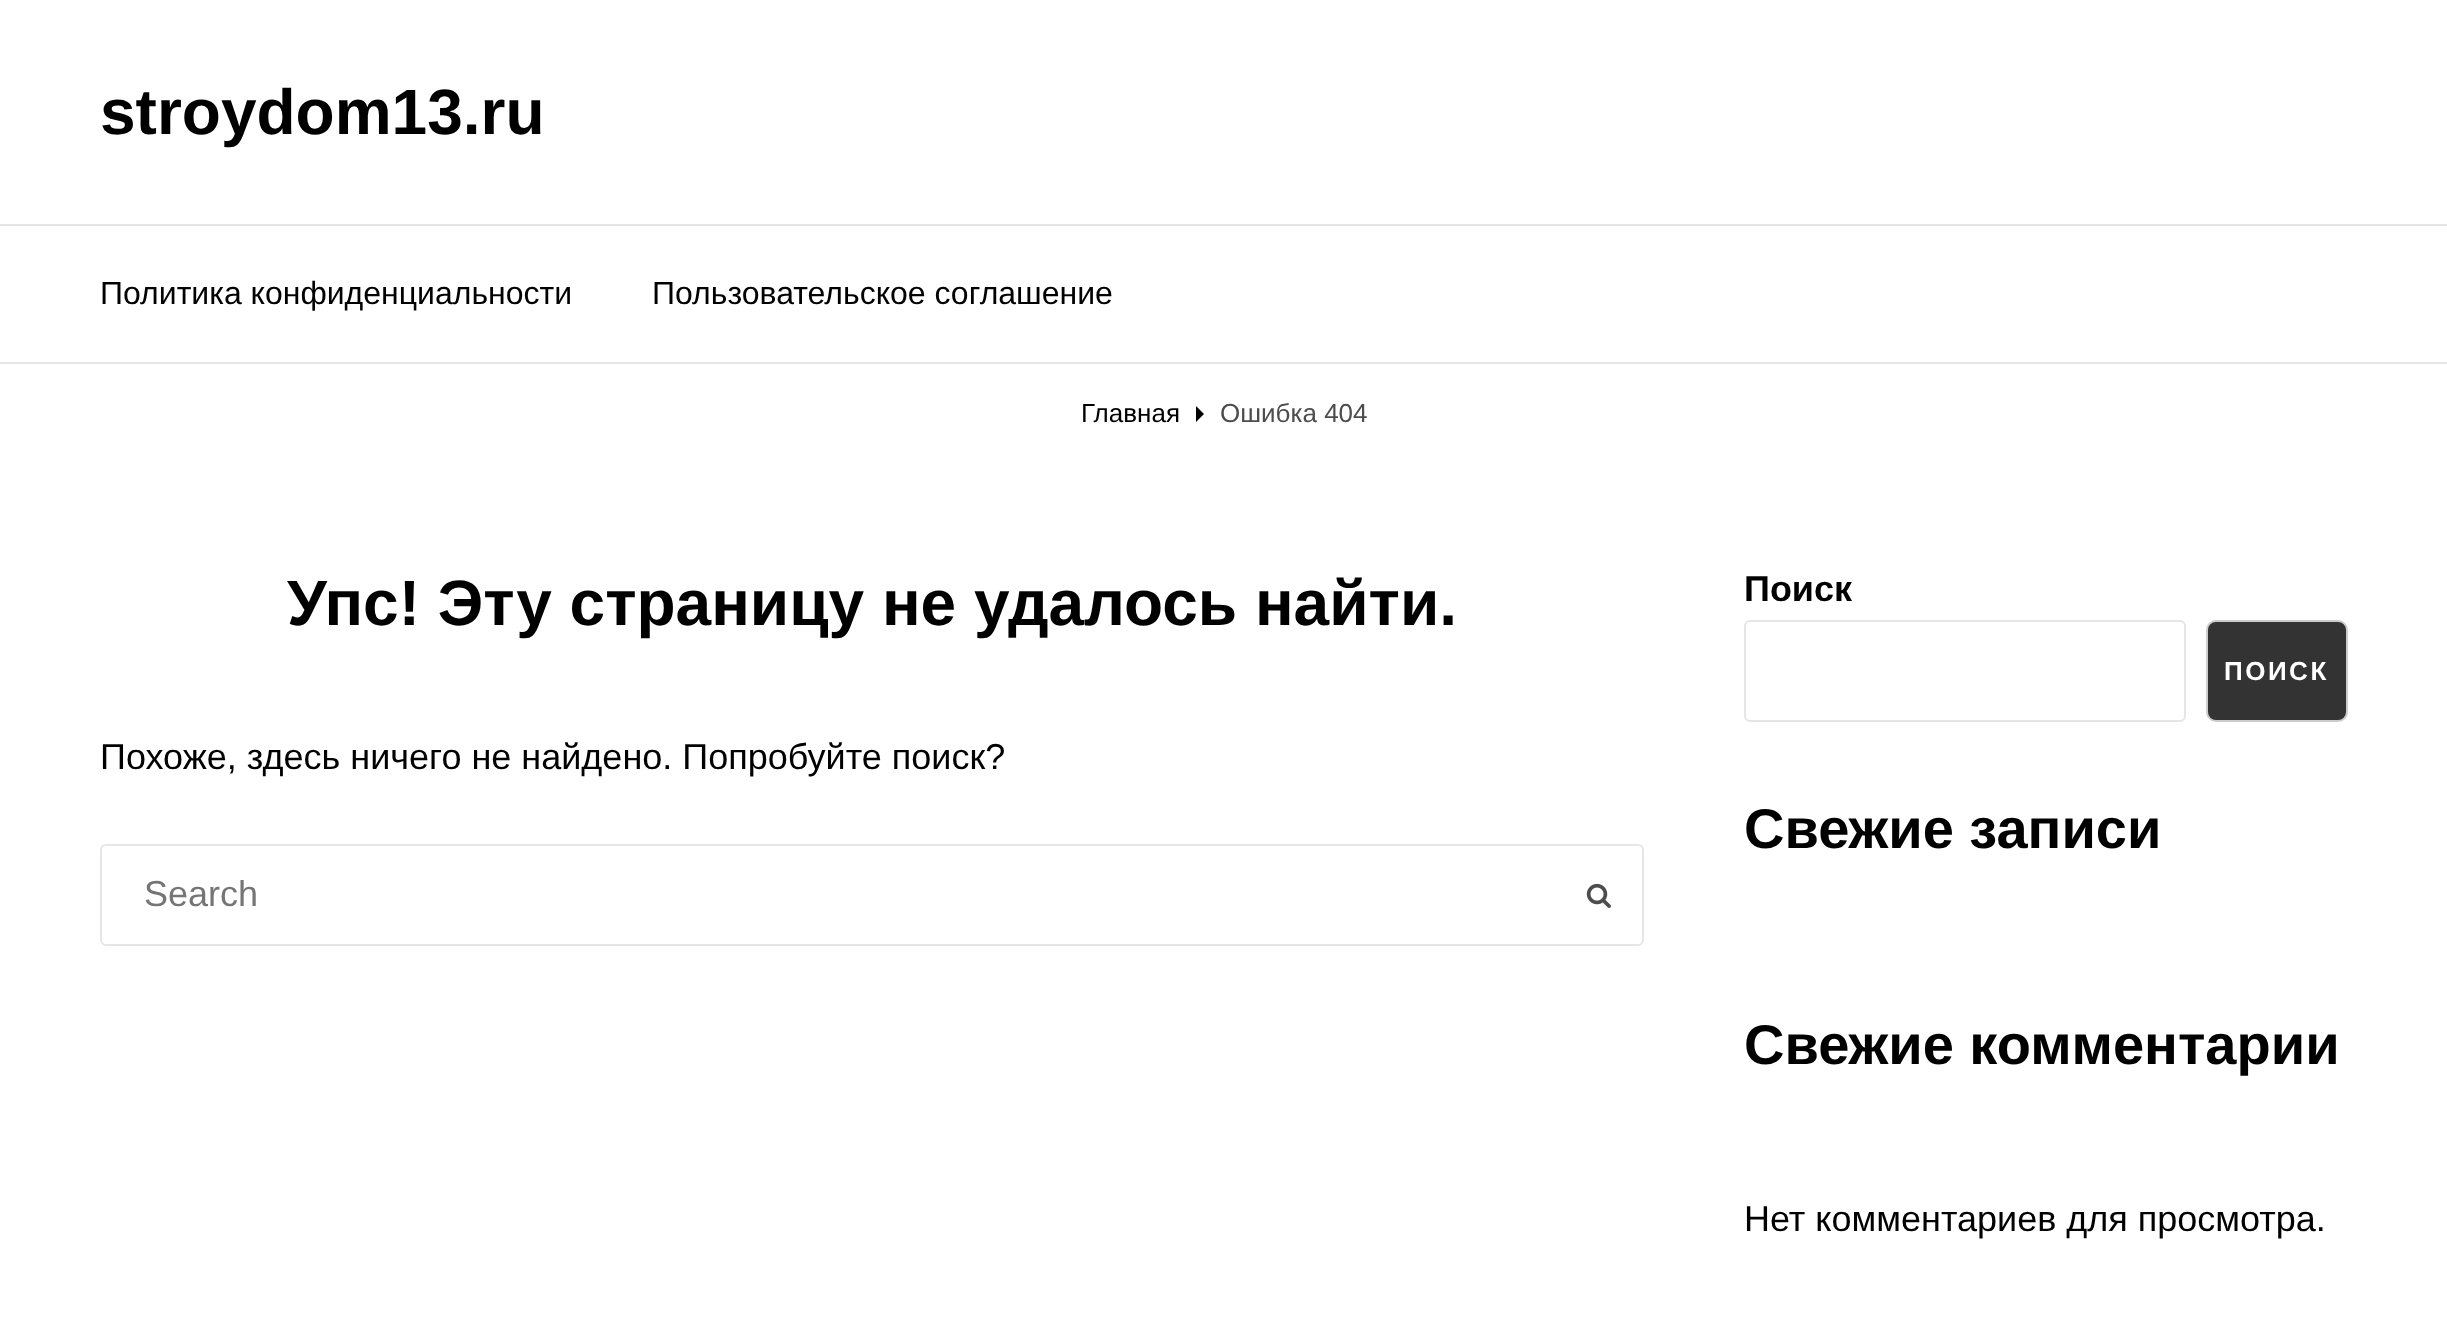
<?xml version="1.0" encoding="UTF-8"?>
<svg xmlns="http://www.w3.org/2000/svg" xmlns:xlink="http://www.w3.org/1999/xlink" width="2447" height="1336">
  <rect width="100%" height="100%" fill="#ffffff" />
  <rect y="224" width="2447" height="2" fill="#e6e6e6" />
  <rect y="362" width="2447" height="2" fill="#e6e6e6" />
  <path d="M 1196 422 v -16 l 8 8 z" fill="#000000" />
  <rect x="101" y="845" width="1542" height="100" rx="5" fill="none" stroke="#e6e6e6" stroke-width="2" />
  <image x="1586" y="883" width="25" height="25" xlink:href="image1.png" />
  <rect x="1745" y="621" width="440" height="100" rx="5" fill="none" stroke="#e6e6e6" stroke-width="2" />
  <rect x="2207" y="621" width="140" height="100" rx="9" fill="#333333" stroke="#cccccc" stroke-width="2" />
  <text x="100" y="134" style="font-family: Liberation Sans; font-size: 64px; font-weight: bold; fill: #000000">stroydom13.ru</text>
  <text x="100" y="304" style="font-family: Liberation Sans; font-size: 32px; fill: #000000">Политика конфиденциальности</text>
  <text x="652" y="304" style="font-family: Liberation Sans; font-size: 32px; fill: #000000">Пользовательское соглашение</text>
  <text x="1081" y="422" style="font-family: Liberation Sans; font-size: 26px; fill: #000000">Главная</text>
  <text x="1220" y="422" style="font-family: Liberation Sans; font-size: 26px; fill: #4d4d4d">Ошибка 404</text>
  <text x="287" y="625" style="font-family: Liberation Sans; font-size: 64px; font-weight: bold; fill: #000000">Упс! Эту страницу не удалось найти.</text>
  <text x="100" y="769" style="font-family: Liberation Sans; font-size: 36px; fill: #000000">Похоже, здесь ничего не найдено. Попробуйте поиск?</text>
  <text x="144" y="906" style="font-family: Liberation Sans; font-size: 36px; fill: #757575">Search</text>
  <text x="1744" y="601" style="font-family: Liberation Sans; font-size: 36px; font-weight: bold; fill: #000000">Поиск</text>
  <text x="2224" y="680" style="font-family: Liberation Sans; font-size: 26px; font-weight: bold; letter-spacing: 2.5px; fill: #ffffff">ПОИСК</text>
  <text x="1744" y="848" style="font-family: Liberation Sans; font-size: 56px; font-weight: bold; fill: #000000">Свежие записи</text>
  <text x="1744" y="1064" style="font-family: Liberation Sans; font-size: 56px; font-weight: bold; fill: #000000">Свежие комментарии</text>
  <text x="1744" y="1231" style="font-family: Liberation Sans; font-size: 36px; fill: #000000">Нет комментариев для просмотра.</text>
</svg>
